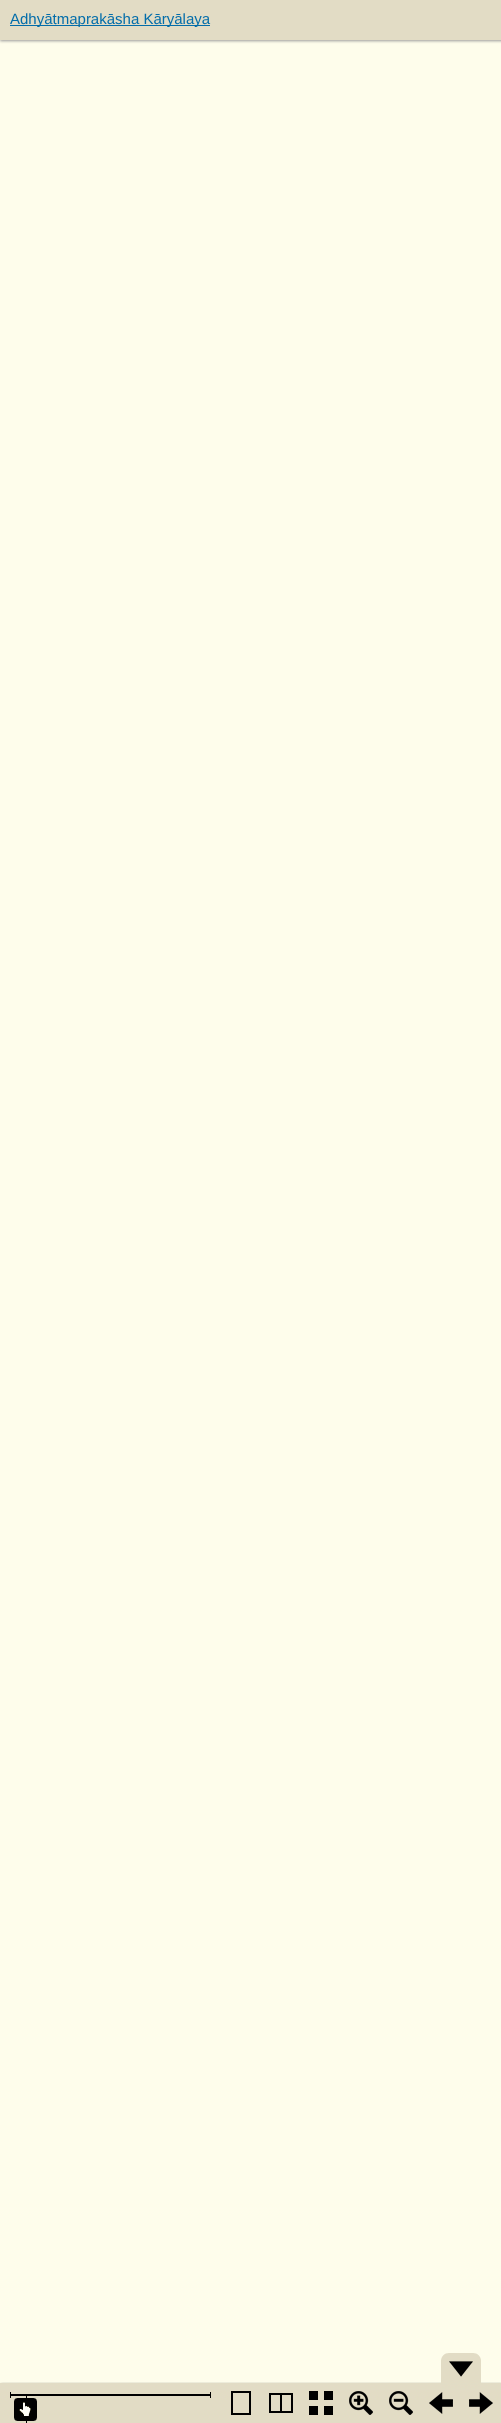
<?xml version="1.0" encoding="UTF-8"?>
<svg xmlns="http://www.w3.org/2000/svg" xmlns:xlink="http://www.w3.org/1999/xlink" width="501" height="2423">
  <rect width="100%" height="100%" fill="#fefdeb" />
  <rect y="1" width="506" height="40" fill="#999999" filter="blur(1.5px)" />
  <rect width="501" height="40" fill="#e2dcc5" />
  <rect x="10" y="25" width="200" height="1" fill="#036daa" />
  <rect x="1" y="2384" width="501" height="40" fill="#333333" filter="blur(1px)" />
  <rect y="2383" width="501" height="40" fill="#e2dcc5" />
  <path d="M 449 2353 h 24 c 4.5 0 8 3.5 8 8 v 22 h -40 v -22 c 0 -4.5 3.5 -8 8 -8 z" fill="#e2dcc5" />
  <image x="449" y="2361" width="24" height="16" xlink:href="image1.png" />
  <rect x="10" y="2394" width="201" height="2" fill="#000000" />
  <rect x="10" y="2392" width="1" height="6" fill="#000000" />
  <rect x="210" y="2392" width="1" height="6" fill="#000000" />
  <image x="14" y="2396" width="23" height="27" xlink:href="image2.png" />
  <image x="231" y="2391" width="20" height="24" xlink:href="image3.png" />
  <image x="269" y="2393" width="24" height="20" xlink:href="image4.png" />
  <image x="309" y="2391" width="24" height="24" xlink:href="image5.png" />
  <image x="349" y="2391" width="24" height="24" xlink:href="image6.png" />
  <image x="389" y="2391" width="24" height="24" xlink:href="image7.png" />
  <image x="429" y="2392" width="24" height="22" xlink:href="image8.png" />
  <image x="469" y="2392" width="24" height="22" xlink:href="image9.png" />
  <text x="10" y="24" style="font-family: Liberation Sans; font-size: 15px; fill: #036daa">Adhyātmaprakāsha Kāryālaya</text>
</svg>
